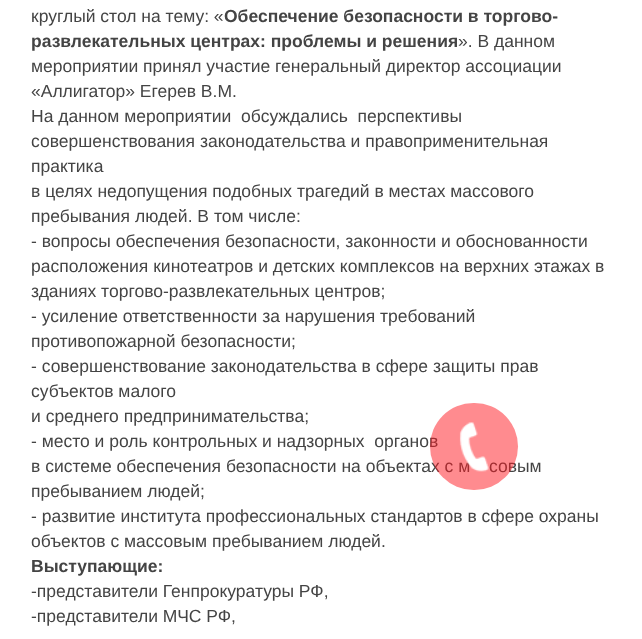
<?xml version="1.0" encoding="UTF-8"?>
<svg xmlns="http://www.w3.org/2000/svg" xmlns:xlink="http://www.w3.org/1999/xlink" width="642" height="639">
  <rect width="100%" height="100%" fill="#ffffff" />
  <text x="31" y="22" style="font-family: Liberation Sans; font-size: 17.5px; fill: #444444">круглый стол на тему: «</text>
  <text x="224" y="22" style="font-family: Liberation Sans; font-size: 17.5px; font-weight: bold; fill: #444444">Обеспечение безопасности в торгово-</text>
  <text x="31" y="47" style="font-family: Liberation Sans; font-size: 17.5px; font-weight: bold; fill: #444444">развлекательных центрах: проблемы и решения</text>
  <text x="458" y="47" style="font-family: Liberation Sans; font-size: 17.5px; fill: #444444">». В данном</text>
  <text x="31" y="72" style="font-family: Liberation Sans; font-size: 17.5px; fill: #444444">мероприятии принял участие генеральный директор ассоциации</text>
  <text x="31" y="97" style="font-family: Liberation Sans; font-size: 17.5px; fill: #444444">«Аллигатор» Егерев В.М.</text>
  <text x="31" y="122" style="font-family: Liberation Sans; font-size: 17.5px; fill: #444444" xml:space="preserve">На данном мероприятии  обсуждались  перспективы</text>
  <text x="31" y="147" style="font-family: Liberation Sans; font-size: 17.5px; fill: #444444">совершенствования законодательства и правоприменительная</text>
  <text x="31" y="172" style="font-family: Liberation Sans; font-size: 17.5px; fill: #444444">практика</text>
  <text x="31" y="197" style="font-family: Liberation Sans; font-size: 17.5px; fill: #444444">в целях недопущения подобных трагедий в местах массового</text>
  <text x="31" y="222" style="font-family: Liberation Sans; font-size: 17.5px; fill: #444444">пребывания людей. В том числе:</text>
  <text x="31" y="247" style="font-family: Liberation Sans; font-size: 17.5px; fill: #444444">- вопросы обеспечения безопасности, законности и обоснованности</text>
  <text x="31" y="272" style="font-family: Liberation Sans; font-size: 17.5px; fill: #444444">расположения кинотеатров и детских комплексов на верхних этажах в</text>
  <text x="31" y="297" style="font-family: Liberation Sans; font-size: 17.5px; fill: #444444">зданиях торгово-развлекательных центров;</text>
  <text x="31" y="322" style="font-family: Liberation Sans; font-size: 17.5px; fill: #444444">- усиление ответственности за нарушения требований</text>
  <text x="31" y="347" style="font-family: Liberation Sans; font-size: 17.5px; fill: #444444">противопожарной безопасности;</text>
  <text x="31" y="372" style="font-family: Liberation Sans; font-size: 17.5px; fill: #444444">- совершенствование законодательства в сфере защиты прав</text>
  <text x="31" y="397" style="font-family: Liberation Sans; font-size: 17.5px; fill: #444444">субъектов малого</text>
  <text x="31" y="422" style="font-family: Liberation Sans; font-size: 17.5px; fill: #444444">и среднего предпринимательства;</text>
  <text x="31" y="447" style="font-family: Liberation Sans; font-size: 17.5px; fill: #444444" xml:space="preserve">- место и роль контрольных и надзорных  органов</text>
  <text x="31" y="472" style="font-family: Liberation Sans; font-size: 17.5px; fill: #444444">в системе обеспечения безопасности на объектах с м</text>
  <text x="489" y="472" style="font-family: Liberation Sans; font-size: 17.5px; fill: #444444">совым</text>
  <text x="31" y="497" style="font-family: Liberation Sans; font-size: 17.5px; fill: #444444">пребыванием людей;</text>
  <text x="31" y="522" style="font-family: Liberation Sans; font-size: 17.5px; fill: #444444">- развитие института профессиональных стандартов в сфере охраны</text>
  <text x="31" y="547" style="font-family: Liberation Sans; font-size: 17.5px; fill: #444444">объектов с массовым пребыванием людей.</text>
  <text x="31" y="572" style="font-family: Liberation Sans; font-size: 17.5px; font-weight: bold; fill: #444444">Выступающие:</text>
  <text x="31" y="597" style="font-family: Liberation Sans; font-size: 17.5px; fill: #444444">-представители Генпрокуратуры РФ,</text>
  <text x="31" y="622" style="font-family: Liberation Sans; font-size: 17.5px; fill: #444444">-представители МЧС РФ,</text>
  <rect x="430" y="403" width="88" height="87" rx="43.5" fill="#ff1720" fill-opacity="0.5" />
  <image x="459" y="422" width="30" height="50" xlink:href="image1.png" />
</svg>
